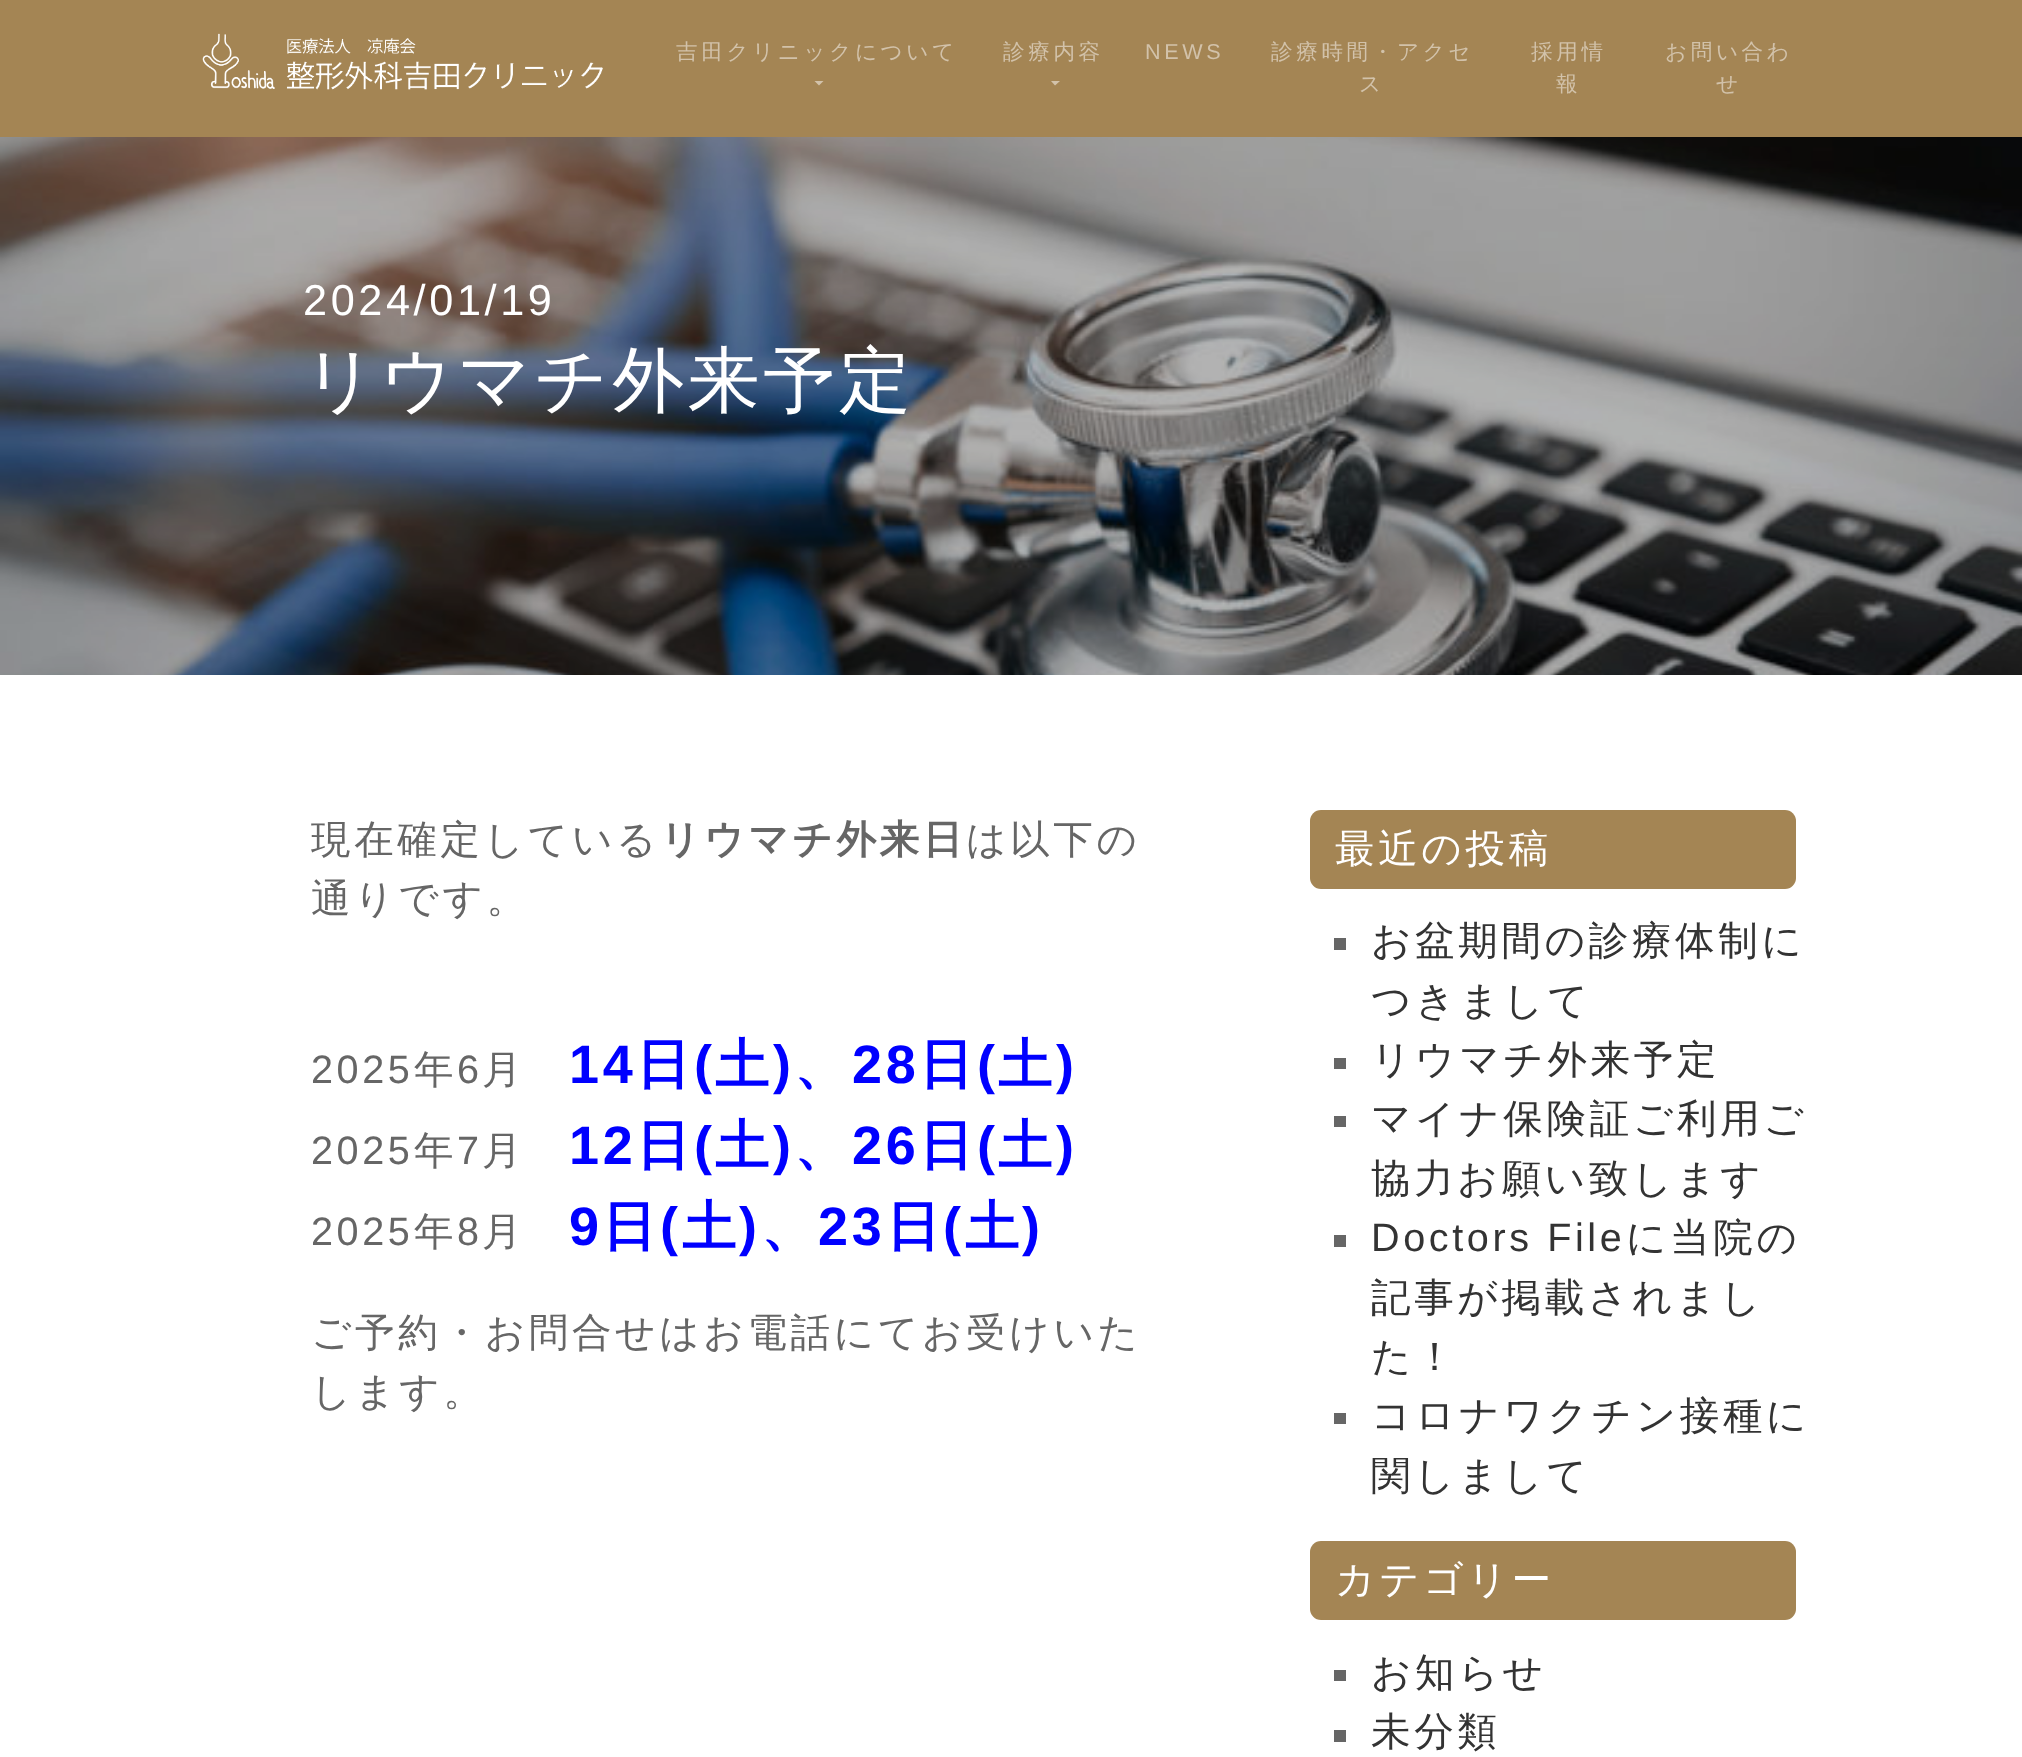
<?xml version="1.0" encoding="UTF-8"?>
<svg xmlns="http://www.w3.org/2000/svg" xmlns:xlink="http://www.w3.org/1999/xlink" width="2022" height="1757">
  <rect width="100%" height="100%" fill="#ffffff" />
  <rect width="2022" height="137" fill="#a48554" />
  <image x="202" y="33" width="401" height="57" xlink:href="image1.png" />
  <path d="M 814.5 81 h 9 l -4.5 4.5 z" fill="#d2c2aa" />
  <path d="M 1051 81 h 9 l -5 4.5 z" fill="#d2c2aa" />
  <image x="0" y="137" width="2022" height="538" xlink:href="image2.png" />
  <rect x="1310" y="810" width="486" height="79" rx="11" fill="#a48554" />
  <rect x="1334" y="938" width="12" height="12" fill="#666666" />
  <rect x="1334" y="1058" width="12" height="11" fill="#666666" />
  <rect x="1334" y="1116" width="12" height="11" fill="#666666" />
  <rect x="1334" y="1235" width="12" height="12" fill="#666666" />
  <rect x="1334" y="1413" width="12" height="11" fill="#666666" />
  <rect x="1310" y="1541" width="486" height="79" rx="11" fill="#a48554" />
  <rect x="1334" y="1670" width="12" height="11" fill="#666666" />
  <rect x="1334" y="1730" width="12" height="12" fill="#666666" />
  <text x="676" y="59" style="font-family: WenQuanYi Zen Hei; font-size: 21.6px; font-weight: 500; letter-spacing: 3.6px; fill: #d2c2aa">吉田クリニックについて</text>
  <text x="1003" y="59" style="font-family: WenQuanYi Zen Hei; font-size: 21.6px; font-weight: 500; letter-spacing: 3.6px; fill: #d2c2aa">診療内容</text>
  <text x="1145" y="59" style="font-family: Liberation Sans; font-size: 21.6px; letter-spacing: 3.6px; fill: #d2c2aa">NEWS</text>
  <text x="1271" y="59" style="font-family: WenQuanYi Zen Hei; font-size: 21.6px; font-weight: 500; letter-spacing: 3.6px; fill: #d2c2aa">診療時間・アクセ</text>
  <text x="1359" y="91" style="font-family: WenQuanYi Zen Hei; font-size: 21.6px; font-weight: 500; letter-spacing: 3.6px; fill: #d2c2aa">ス</text>
  <text x="1531" y="59" style="font-family: WenQuanYi Zen Hei; font-size: 21.6px; font-weight: 500; letter-spacing: 3.6px; fill: #d2c2aa">採用情</text>
  <text x="1556" y="91" style="font-family: WenQuanYi Zen Hei; font-size: 21.6px; font-weight: 500; letter-spacing: 3.6px; fill: #d2c2aa">報</text>
  <text x="1665" y="59" style="font-family: WenQuanYi Zen Hei; font-size: 21.6px; font-weight: 500; letter-spacing: 3.6px; fill: #d2c2aa">お問い合わ</text>
  <text x="1716" y="91" style="font-family: WenQuanYi Zen Hei; font-size: 21.6px; font-weight: 500; letter-spacing: 3.6px; fill: #d2c2aa">せ</text>
  <text x="303" y="315" style="font-family: Liberation Sans; font-size: 43.25px; letter-spacing: 3.6px; fill: #ffffff">2024/01/19</text>
  <text x="303" y="405" style="font-family: WenQuanYi Zen Hei; font-size: 72px; font-weight: 500; letter-spacing: 3.6px; fill: #ffffff">リウマチ外来予定</text>
  <text x="311" y="853" style="font-family: WenQuanYi Zen Hei; font-size: 39.6px; font-weight: 500; letter-spacing: 3.6px; fill: #666666">現在確定している</text>
  <text x="660" y="853" style="font-family: WenQuanYi Zen Hei; font-size: 39.6px; font-weight: bold; letter-spacing: 3.6px; fill: #666666">リウマチ外来日</text>
  <text x="966" y="853" style="font-family: WenQuanYi Zen Hei; font-size: 39.6px; font-weight: 500; letter-spacing: 3.6px; fill: #666666">は以下の</text>
  <text x="311" y="912" style="font-family: WenQuanYi Zen Hei; font-size: 39.6px; font-weight: 500; letter-spacing: 3.6px; fill: #666666">通りです。</text>
  <text x="311" y="1083" style="font-family: Liberation Sans; font-size: 39.6px; letter-spacing: 3.6px; fill: #666666">2025</text>
  <text x="414" y="1083" style="font-family: WenQuanYi Zen Hei; font-size: 39.6px; font-weight: 500; letter-spacing: 3.6px; fill: #666666">年</text>
  <text x="457" y="1083" style="font-family: Liberation Sans; font-size: 39.6px; letter-spacing: 3.6px; fill: #666666">6</text>
  <text x="482" y="1083" style="font-family: WenQuanYi Zen Hei; font-size: 39.6px; font-weight: 500; letter-spacing: 3.6px; fill: #666666">月</text>
  <text x="569" y="1083" style="font-family: Liberation Sans; font-size: 54px; font-weight: bold; letter-spacing: 3.6px; fill: #0000ff">14</text>
  <text x="636" y="1083" style="font-family: WenQuanYi Zen Hei; font-size: 54px; font-weight: bold; letter-spacing: 3.6px; fill: #0000ff">日</text>
  <text x="694" y="1083" style="font-family: Liberation Sans; font-size: 54px; font-weight: bold; letter-spacing: 3.6px; fill: #0000ff">(</text>
  <text x="715" y="1083" style="font-family: WenQuanYi Zen Hei; font-size: 54px; font-weight: bold; letter-spacing: 3.6px; fill: #0000ff">土</text>
  <text x="773" y="1083" style="font-family: Liberation Sans; font-size: 54px; font-weight: bold; letter-spacing: 3.6px; fill: #0000ff">)</text>
  <text x="794" y="1083" style="font-family: WenQuanYi Zen Hei; font-size: 54px; font-weight: bold; letter-spacing: 3.6px; fill: #0000ff">、</text>
  <text x="852" y="1083" style="font-family: Liberation Sans; font-size: 54px; font-weight: bold; letter-spacing: 3.6px; fill: #0000ff">28</text>
  <text x="919" y="1083" style="font-family: WenQuanYi Zen Hei; font-size: 54px; font-weight: bold; letter-spacing: 3.6px; fill: #0000ff">日</text>
  <text x="977" y="1083" style="font-family: Liberation Sans; font-size: 54px; font-weight: bold; letter-spacing: 3.6px; fill: #0000ff">(</text>
  <text x="998" y="1083" style="font-family: WenQuanYi Zen Hei; font-size: 54px; font-weight: bold; letter-spacing: 3.6px; fill: #0000ff">土</text>
  <text x="1056" y="1083" style="font-family: Liberation Sans; font-size: 54px; font-weight: bold; letter-spacing: 3.6px; fill: #0000ff">)</text>
  <text x="311" y="1164" style="font-family: Liberation Sans; font-size: 39.6px; letter-spacing: 3.6px; fill: #666666">2025</text>
  <text x="414" y="1164" style="font-family: WenQuanYi Zen Hei; font-size: 39.6px; font-weight: 500; letter-spacing: 3.6px; fill: #666666">年</text>
  <text x="457" y="1164" style="font-family: Liberation Sans; font-size: 39.6px; letter-spacing: 3.6px; fill: #666666">7</text>
  <text x="482" y="1164" style="font-family: WenQuanYi Zen Hei; font-size: 39.6px; font-weight: 500; letter-spacing: 3.6px; fill: #666666">月</text>
  <text x="569" y="1164" style="font-family: Liberation Sans; font-size: 54px; font-weight: bold; letter-spacing: 3.6px; fill: #0000ff">12</text>
  <text x="636" y="1164" style="font-family: WenQuanYi Zen Hei; font-size: 54px; font-weight: bold; letter-spacing: 3.6px; fill: #0000ff">日</text>
  <text x="694" y="1164" style="font-family: Liberation Sans; font-size: 54px; font-weight: bold; letter-spacing: 3.6px; fill: #0000ff">(</text>
  <text x="715" y="1164" style="font-family: WenQuanYi Zen Hei; font-size: 54px; font-weight: bold; letter-spacing: 3.6px; fill: #0000ff">土</text>
  <text x="773" y="1164" style="font-family: Liberation Sans; font-size: 54px; font-weight: bold; letter-spacing: 3.6px; fill: #0000ff">)</text>
  <text x="794" y="1164" style="font-family: WenQuanYi Zen Hei; font-size: 54px; font-weight: bold; letter-spacing: 3.6px; fill: #0000ff">、</text>
  <text x="852" y="1164" style="font-family: Liberation Sans; font-size: 54px; font-weight: bold; letter-spacing: 3.6px; fill: #0000ff">26</text>
  <text x="919" y="1164" style="font-family: WenQuanYi Zen Hei; font-size: 54px; font-weight: bold; letter-spacing: 3.6px; fill: #0000ff">日</text>
  <text x="977" y="1164" style="font-family: Liberation Sans; font-size: 54px; font-weight: bold; letter-spacing: 3.6px; fill: #0000ff">(</text>
  <text x="998" y="1164" style="font-family: WenQuanYi Zen Hei; font-size: 54px; font-weight: bold; letter-spacing: 3.6px; fill: #0000ff">土</text>
  <text x="1056" y="1164" style="font-family: Liberation Sans; font-size: 54px; font-weight: bold; letter-spacing: 3.6px; fill: #0000ff">)</text>
  <text x="311" y="1245" style="font-family: Liberation Sans; font-size: 39.6px; letter-spacing: 3.6px; fill: #666666">2025</text>
  <text x="414" y="1245" style="font-family: WenQuanYi Zen Hei; font-size: 39.6px; font-weight: 500; letter-spacing: 3.6px; fill: #666666">年</text>
  <text x="457" y="1245" style="font-family: Liberation Sans; font-size: 39.6px; letter-spacing: 3.6px; fill: #666666">8</text>
  <text x="482" y="1245" style="font-family: WenQuanYi Zen Hei; font-size: 39.6px; font-weight: 500; letter-spacing: 3.6px; fill: #666666">月</text>
  <text x="569" y="1245" style="font-family: Liberation Sans; font-size: 54px; font-weight: bold; letter-spacing: 3.6px; fill: #0000ff">9</text>
  <text x="602" y="1245" style="font-family: WenQuanYi Zen Hei; font-size: 54px; font-weight: bold; letter-spacing: 3.6px; fill: #0000ff">日</text>
  <text x="660" y="1245" style="font-family: Liberation Sans; font-size: 54px; font-weight: bold; letter-spacing: 3.6px; fill: #0000ff">(</text>
  <text x="682" y="1245" style="font-family: WenQuanYi Zen Hei; font-size: 54px; font-weight: bold; letter-spacing: 3.6px; fill: #0000ff">土</text>
  <text x="739" y="1245" style="font-family: Liberation Sans; font-size: 54px; font-weight: bold; letter-spacing: 3.6px; fill: #0000ff">)</text>
  <text x="761" y="1245" style="font-family: WenQuanYi Zen Hei; font-size: 54px; font-weight: bold; letter-spacing: 3.6px; fill: #0000ff">、</text>
  <text x="818" y="1245" style="font-family: Liberation Sans; font-size: 54px; font-weight: bold; letter-spacing: 3.6px; fill: #0000ff">23</text>
  <text x="886" y="1245" style="font-family: WenQuanYi Zen Hei; font-size: 54px; font-weight: bold; letter-spacing: 3.6px; fill: #0000ff">日</text>
  <text x="943" y="1245" style="font-family: Liberation Sans; font-size: 54px; font-weight: bold; letter-spacing: 3.6px; fill: #0000ff">(</text>
  <text x="965" y="1245" style="font-family: WenQuanYi Zen Hei; font-size: 54px; font-weight: bold; letter-spacing: 3.6px; fill: #0000ff">土</text>
  <text x="1022" y="1245" style="font-family: Liberation Sans; font-size: 54px; font-weight: bold; letter-spacing: 3.6px; fill: #0000ff">)</text>
  <text x="311" y="1346" style="font-family: WenQuanYi Zen Hei; font-size: 39.6px; font-weight: 500; letter-spacing: 3.6px; fill: #666666">ご予約・お問合せはお電話にてお受けいた</text>
  <text x="311" y="1405" style="font-family: WenQuanYi Zen Hei; font-size: 39.6px; font-weight: 500; letter-spacing: 3.6px; fill: #666666">します。</text>
  <text x="1335" y="862" style="font-family: WenQuanYi Zen Hei; font-size: 39.6px; font-weight: 500; letter-spacing: 3.6px; fill: #ffffff">最近の投稿</text>
  <text x="1371" y="954" style="font-family: WenQuanYi Zen Hei; font-size: 39.6px; font-weight: 500; letter-spacing: 3.6px; fill: #333333">お盆期間の診療体制に</text>
  <text x="1371" y="1014" style="font-family: WenQuanYi Zen Hei; font-size: 39.6px; font-weight: 500; letter-spacing: 3.6px; fill: #333333">つきまして</text>
  <text x="1371" y="1073" style="font-family: WenQuanYi Zen Hei; font-size: 39.6px; font-weight: 500; letter-spacing: 3.6px; fill: #333333">リウマチ外来予定</text>
  <text x="1371" y="1132" style="font-family: WenQuanYi Zen Hei; font-size: 39.6px; font-weight: 500; letter-spacing: 3.6px; fill: #333333">マイナ保険証ご利用ご</text>
  <text x="1371" y="1192" style="font-family: WenQuanYi Zen Hei; font-size: 39.6px; font-weight: 500; letter-spacing: 3.6px; fill: #333333">協力お願い致します</text>
  <text x="1371" y="1251" style="font-family: Liberation Sans; font-size: 39.6px; letter-spacing: 3.6px; fill: #333333">Doctors File</text>
  <text x="1626" y="1251" style="font-family: WenQuanYi Zen Hei; font-size: 39.6px; font-weight: 500; letter-spacing: 3.6px; fill: #333333">に当院の</text>
  <text x="1371" y="1311" style="font-family: WenQuanYi Zen Hei; font-size: 39.6px; font-weight: 500; letter-spacing: 3.6px; fill: #333333">記事が掲載されまし</text>
  <text x="1371" y="1370" style="font-family: WenQuanYi Zen Hei; font-size: 39.6px; font-weight: 500; letter-spacing: 3.6px; fill: #333333">た！</text>
  <text x="1371" y="1429" style="font-family: WenQuanYi Zen Hei; font-size: 39.6px; font-weight: 500; letter-spacing: 3.6px; fill: #333333">コロナワクチン接種に</text>
  <text x="1371" y="1489" style="font-family: WenQuanYi Zen Hei; font-size: 39.6px; font-weight: 500; letter-spacing: 3.6px; fill: #333333">関しまして</text>
  <text x="1335" y="1593" style="font-family: WenQuanYi Zen Hei; font-size: 39.6px; font-weight: 500; letter-spacing: 3.6px; fill: #ffffff">カテゴリー</text>
  <text x="1371" y="1686" style="font-family: WenQuanYi Zen Hei; font-size: 39.6px; font-weight: 500; letter-spacing: 3.6px; fill: #333333">お知らせ</text>
  <text x="1371" y="1745" style="font-family: WenQuanYi Zen Hei; font-size: 39.6px; font-weight: 500; letter-spacing: 3.6px; fill: #333333">未分類</text>
</svg>
